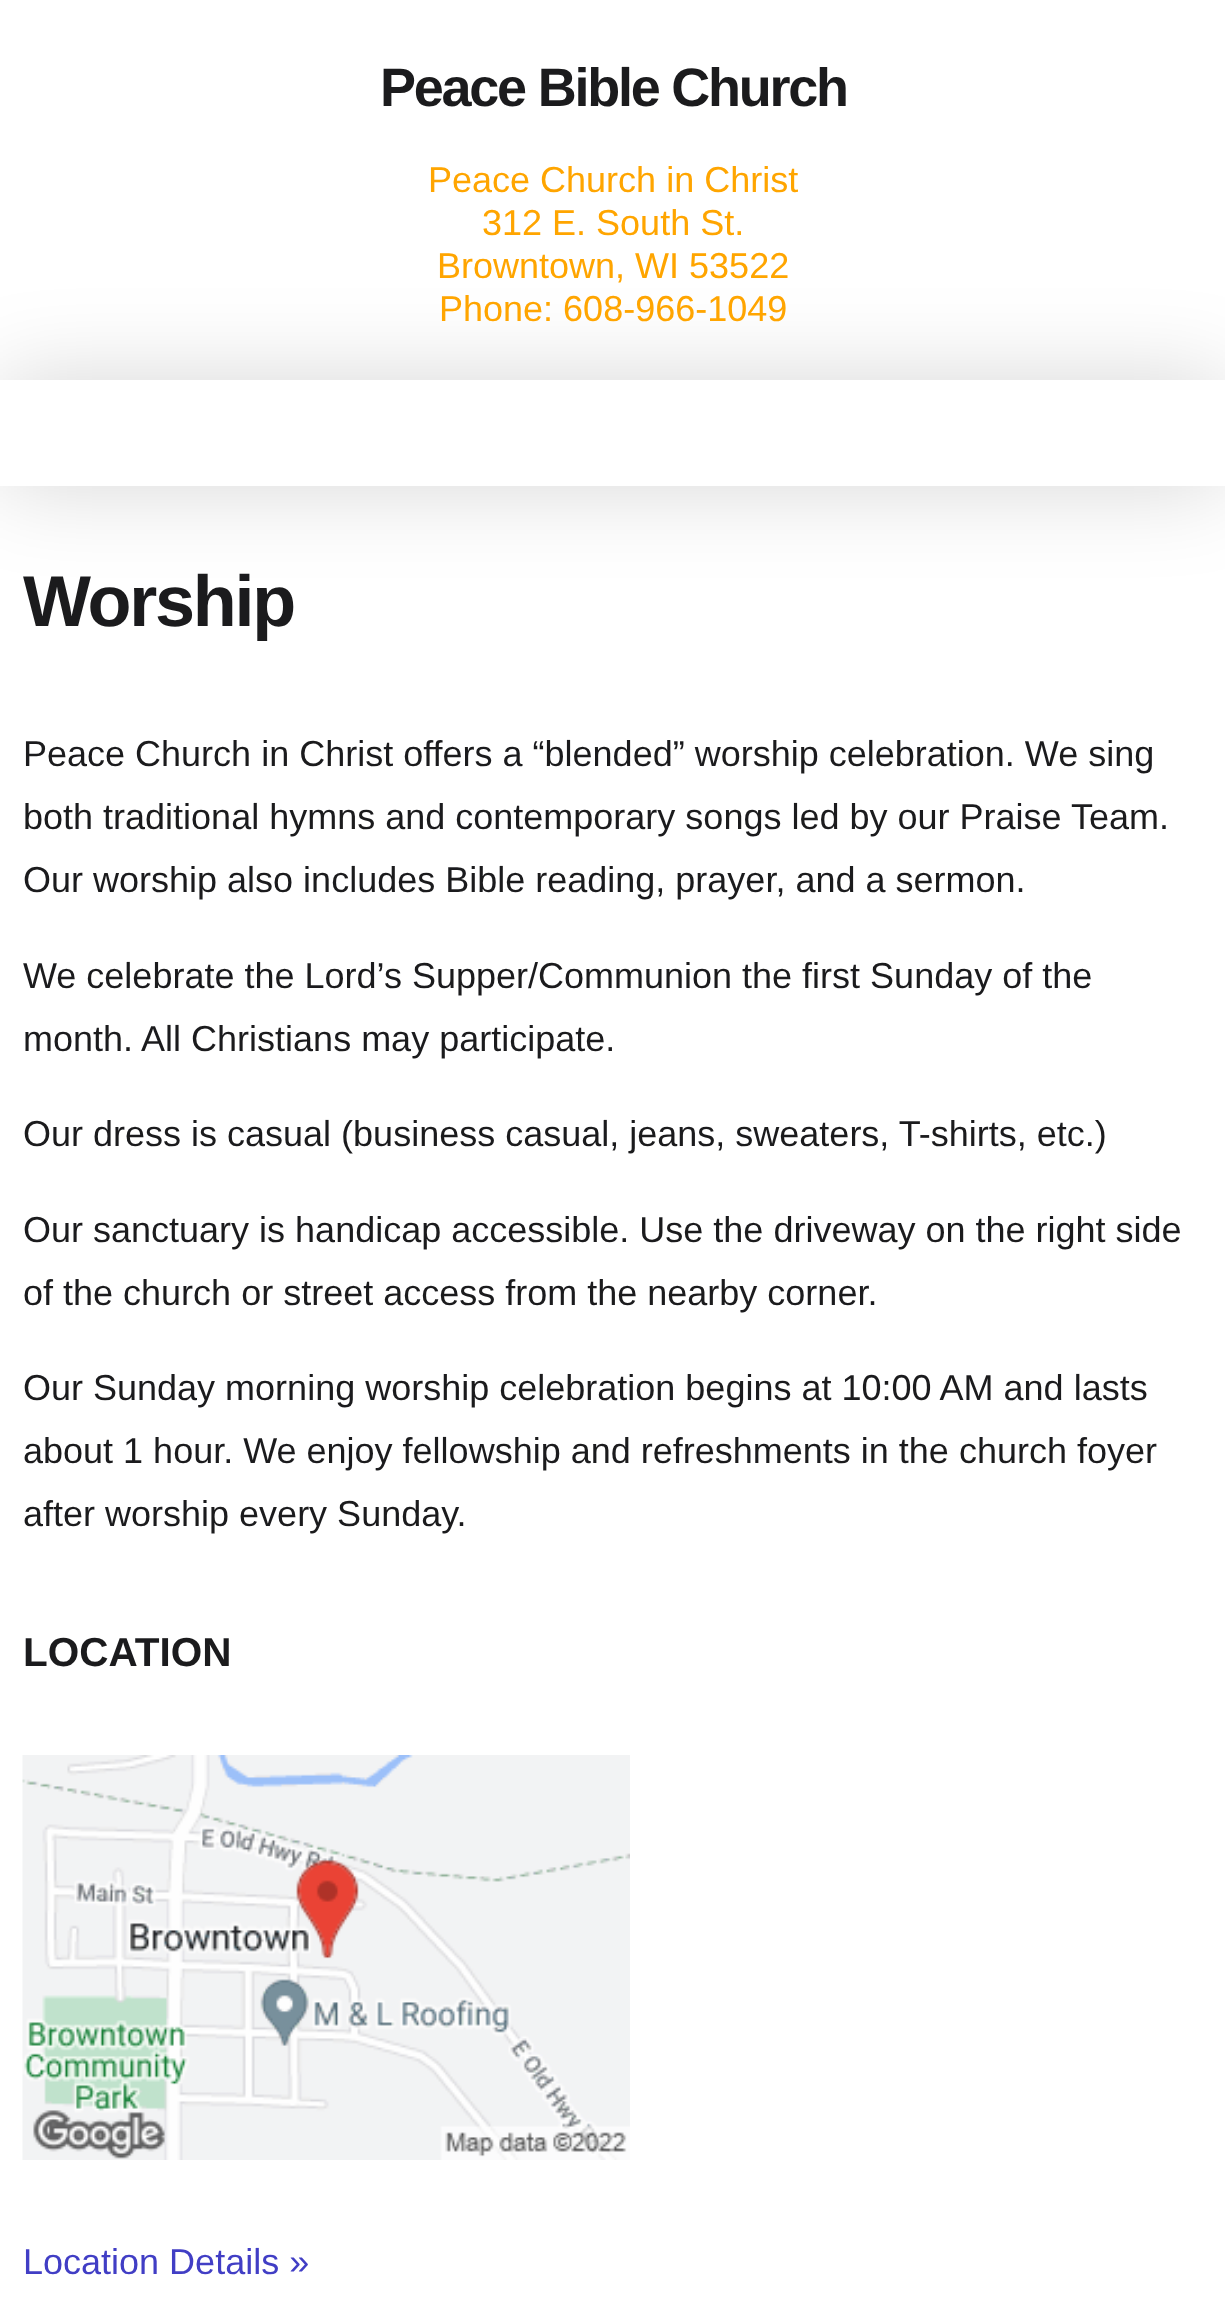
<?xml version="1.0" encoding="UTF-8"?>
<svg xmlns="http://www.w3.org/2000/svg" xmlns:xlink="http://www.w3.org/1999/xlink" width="1225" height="2300">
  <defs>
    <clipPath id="clip1"><path d="M 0 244 h 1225 v 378 h -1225 z m 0 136 h 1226 v 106 h -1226 z" clip-rule="evenodd" /></clipPath>
  </defs>
  <rect width="100%" height="100%" fill="#ffffff" />
  <g clip-path="url(#clip1)">
    <rect y="380" width="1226" height="106" fill="#000000" fill-opacity="0.16" filter="blur(45px)" />
  </g>
  <image x="22" y="1755" width="608" height="405" xlink:href="image1.png" />
  <text x="380" y="106" style="font-family: Liberation Sans; font-size: 54px; font-weight: bold; letter-spacing: -2.25px; fill: #1b1b1d">Peace Bible Church</text>
  <text x="428" y="192" style="font-family: Liberation Sans; font-size: 36px; fill: #ffa500">Peace Church in Christ</text>
  <text x="482" y="235" style="font-family: Liberation Sans; font-size: 36px; fill: #ffa500">312 E. South St.</text>
  <text x="437" y="278" style="font-family: Liberation Sans; font-size: 36px; fill: #ffa500">Browntown, WI 53522</text>
  <text x="439" y="321" style="font-family: Liberation Sans; font-size: 36px; fill: #ffa500">Phone: 608-966-1049</text>
  <text x="23" y="626" style="font-family: Liberation Sans; font-size: 72px; font-weight: bold; letter-spacing: -2.25px; fill: #1b1b1d">Worship</text>
  <text x="23" y="766" style="font-family: Liberation Sans; font-size: 36px; fill: #1b1b1d">Peace Church in Christ offers a “blended” worship celebration. We sing</text>
  <text x="23" y="829" style="font-family: Liberation Sans; font-size: 36px; fill: #1b1b1d">both traditional hymns and contemporary songs led by our Praise Team.</text>
  <text x="23" y="892" style="font-family: Liberation Sans; font-size: 36px; fill: #1b1b1d">Our worship also includes Bible reading, prayer, and a sermon.</text>
  <text x="23" y="988" style="font-family: Liberation Sans; font-size: 36px; fill: #1b1b1d">We celebrate the Lord’s Supper/Communion the first Sunday of the</text>
  <text x="23" y="1051" style="font-family: Liberation Sans; font-size: 36px; fill: #1b1b1d">month. All Christians may participate.</text>
  <text x="23" y="1146" style="font-family: Liberation Sans; font-size: 36px; fill: #1b1b1d">Our dress is casual (business casual, jeans, sweaters, T-shirts, etc.)</text>
  <text x="23" y="1242" style="font-family: Liberation Sans; font-size: 36px; fill: #1b1b1d">Our sanctuary is handicap accessible. Use the driveway on the right side</text>
  <text x="23" y="1305" style="font-family: Liberation Sans; font-size: 36px; fill: #1b1b1d">of the church or street access from the nearby corner.</text>
  <text x="23" y="1400" style="font-family: Liberation Sans; font-size: 36px; fill: #1b1b1d">Our Sunday morning worship celebration begins at 10:00 AM and lasts</text>
  <text x="23" y="1463" style="font-family: Liberation Sans; font-size: 36px; fill: #1b1b1d">about 1 hour. We enjoy fellowship and refreshments in the church foyer</text>
  <text x="23" y="1526" style="font-family: Liberation Sans; font-size: 36px; fill: #1b1b1d">after worship every Sunday.</text>
  <text x="23" y="1666" style="font-family: Liberation Sans; font-size: 40.5px; font-weight: bold; fill: #1b1b1d">LOCATION</text>
  <text x="23" y="2274" style="font-family: Liberation Sans; font-size: 36px; fill: #413ec5">Location Details »</text>
</svg>
